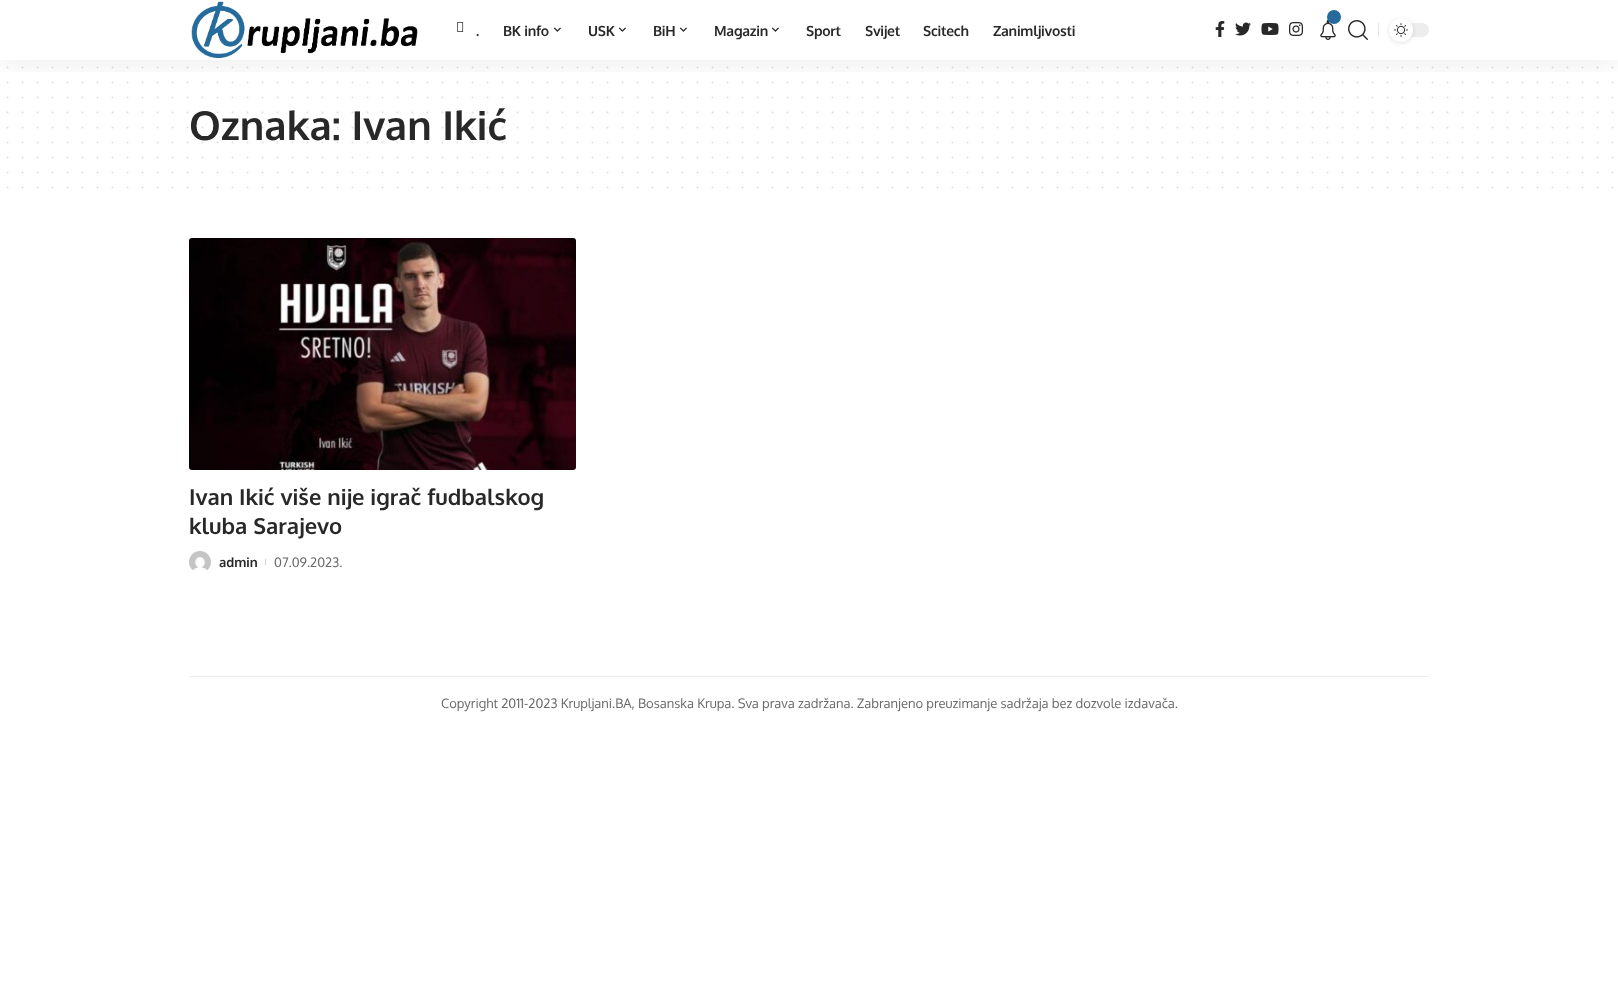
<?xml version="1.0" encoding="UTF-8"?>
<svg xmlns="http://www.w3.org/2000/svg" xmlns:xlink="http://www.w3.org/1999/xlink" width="1618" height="988">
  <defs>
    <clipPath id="clip1"><rect x="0" y="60" width="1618" height="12" /></clipPath>
  </defs>
  <rect width="100%" height="100%" fill="#ffffff" />
  <path d="M 7.5 67.5 h 1605.2" fill="none" stroke="#dfdfdf" stroke-width="2" stroke-linecap="round" stroke-dasharray="0 15" />
  <path d="M 7.5 82.5 h 1605.2" fill="none" stroke="#dfdfdf" stroke-width="2" stroke-linecap="round" stroke-dasharray="0 15" />
  <path d="M 7.5 97.5 h 1605.2" fill="none" stroke="#dfdfdf" stroke-width="2" stroke-linecap="round" stroke-dasharray="0 15" />
  <g clip-path="url(#clip1)">
    <rect y="4" width="1618" height="60" fill="#000000" fill-opacity="0.07" filter="blur(15px)" />
  </g>
  <image x="191" y="1" width="227" height="57" xlink:href="image1.png" />
  <image x="457" y="22" width="7" height="10" xlink:href="image2.png" />
  <image x="553" y="27" width="8" height="5" xlink:href="image3.png" />
  <image x="618" y="27" width="8" height="5" xlink:href="image3.png" />
  <image x="679" y="27" width="8" height="5" xlink:href="image3.png" />
  <image x="771" y="27" width="8" height="5" xlink:href="image3.png" />
  <image x="1215" y="21" width="10" height="16" xlink:href="image4.png" />
  <image x="1235" y="22" width="16" height="14" xlink:href="image5.png" />
  <image x="1261" y="23" width="18" height="12" xlink:href="image6.png" />
  <image x="1289" y="22" width="14" height="14" xlink:href="image7.png" />
  <image x="1320" y="20" width="16" height="20" xlink:href="image8.png" />
  <circle cx="1334" cy="17" r="7" fill="#256b9c" />
  <image x="1348" y="20" width="20" height="20" xlink:href="image9.png" />
  <rect x="1378" y="23" width="1" height="14" fill="#e4e4e4" />
  <rect x="1389" y="23" width="40" height="14" rx="7" fill="#ededed" />
  <rect x="1389" y="19" width="24" height="24" rx="12" fill="#000000" fill-opacity="0.12" filter="blur(2px)" />
  <circle cx="1401" cy="30" r="12" fill="#ffffff" />
  <image x="1394" y="23" width="14" height="14" xlink:href="image10.png" />
  <path d="M 7.5 142.5 h 1605.2" fill="none" stroke="#dfdfdf" stroke-width="2" stroke-linecap="round" stroke-dasharray="0 15" />
  <path d="M 7.5 157.5 h 1605.2" fill="none" stroke="#dfdfdf" stroke-width="2" stroke-linecap="round" stroke-dasharray="0 15" />
  <path d="M 7.5 172.5 h 1605.2" fill="none" stroke="#dfdfdf" stroke-width="2" stroke-linecap="round" stroke-dasharray="0 15" />
  <path d="M 7.5 187.5 h 1605.2" fill="none" stroke="#dfdfdf" stroke-width="2" stroke-linecap="round" stroke-dasharray="0 15" />
  <image x="189" y="238" width="387" height="232" xlink:href="image11.png" />
  <image x="189" y="551" width="22" height="20" xlink:href="image12.png" />
  <rect x="265" y="559" width="1" height="6" fill="#d1d1d1" />
  <rect x="189" y="676" width="1240" height="1" fill="#ededed" />
  <text x="476" y="36" style="font-family: Oxygen; font-size: 14px; font-weight: bold; letter-spacing: -0.25px; fill: #282828">.</text>
  <text x="503" y="36" style="font-family: Oxygen; font-size: 14px; font-weight: bold; letter-spacing: -0.25px; fill: #282828">BK info</text>
  <text x="588" y="36" style="font-family: Oxygen; font-size: 14px; font-weight: bold; letter-spacing: -0.25px; fill: #282828">USK</text>
  <text x="653" y="36" style="font-family: Oxygen; font-size: 14px; font-weight: bold; letter-spacing: -0.25px; fill: #282828">BiH</text>
  <text x="714" y="36" style="font-family: Oxygen; font-size: 14px; font-weight: bold; letter-spacing: -0.25px; fill: #282828">Magazin</text>
  <text x="806" y="36" style="font-family: Oxygen; font-size: 14px; font-weight: bold; letter-spacing: -0.25px; fill: #282828">Sport</text>
  <text x="865" y="36" style="font-family: Oxygen; font-size: 14px; font-weight: bold; letter-spacing: -0.25px; fill: #282828">Svijet</text>
  <text x="923" y="36" style="font-family: Oxygen; font-size: 14px; font-weight: bold; letter-spacing: -0.25px; fill: #282828">Scitech</text>
  <text x="993" y="36" style="font-family: Oxygen; font-size: 14px; font-weight: bold; letter-spacing: -0.25px; fill: #282828">Zanimljivosti</text>
  <text x="189" y="140" style="font-family: Oxygen; font-size: 40px; font-weight: bold; fill: #282828">Oznaka: Ivan Ikić</text>
  <path d="M 7.5 127.5 h 1605.2" fill="none" stroke="#282828" stroke-opacity="0.15" stroke-width="2" stroke-linecap="round" stroke-dasharray="0 15" />
  <path d="M 7.5 112.5 h 1605.2" fill="none" stroke="#282828" stroke-opacity="0.15" stroke-width="2" stroke-linecap="round" stroke-dasharray="0 15" />
  <text x="189" y="505" style="font-family: Oxygen; font-size: 22px; font-weight: bold; fill: #282828">Ivan Ikić više nije igrač fudbalskog</text>
  <text x="189" y="534" style="font-family: Oxygen; font-size: 22px; font-weight: bold; fill: #282828">kluba Sarajevo</text>
  <text x="219" y="567" style="font-family: Oxygen; font-size: 13px; font-weight: bold; fill: #282828">admin</text>
  <text x="274" y="567" style="font-family: Oxygen; font-size: 13px; fill: #696969">07.09.2023.</text>
  <text x="441" y="708" style="font-family: Oxygen; font-size: 13px; fill: #696969">Copyright 2011-2023 Krupljani.BA, Bosanska Krupa. Sva prava zadržana. Zabranjeno preuzimanje sadržaja bez dozvole izdavača.</text>
</svg>
